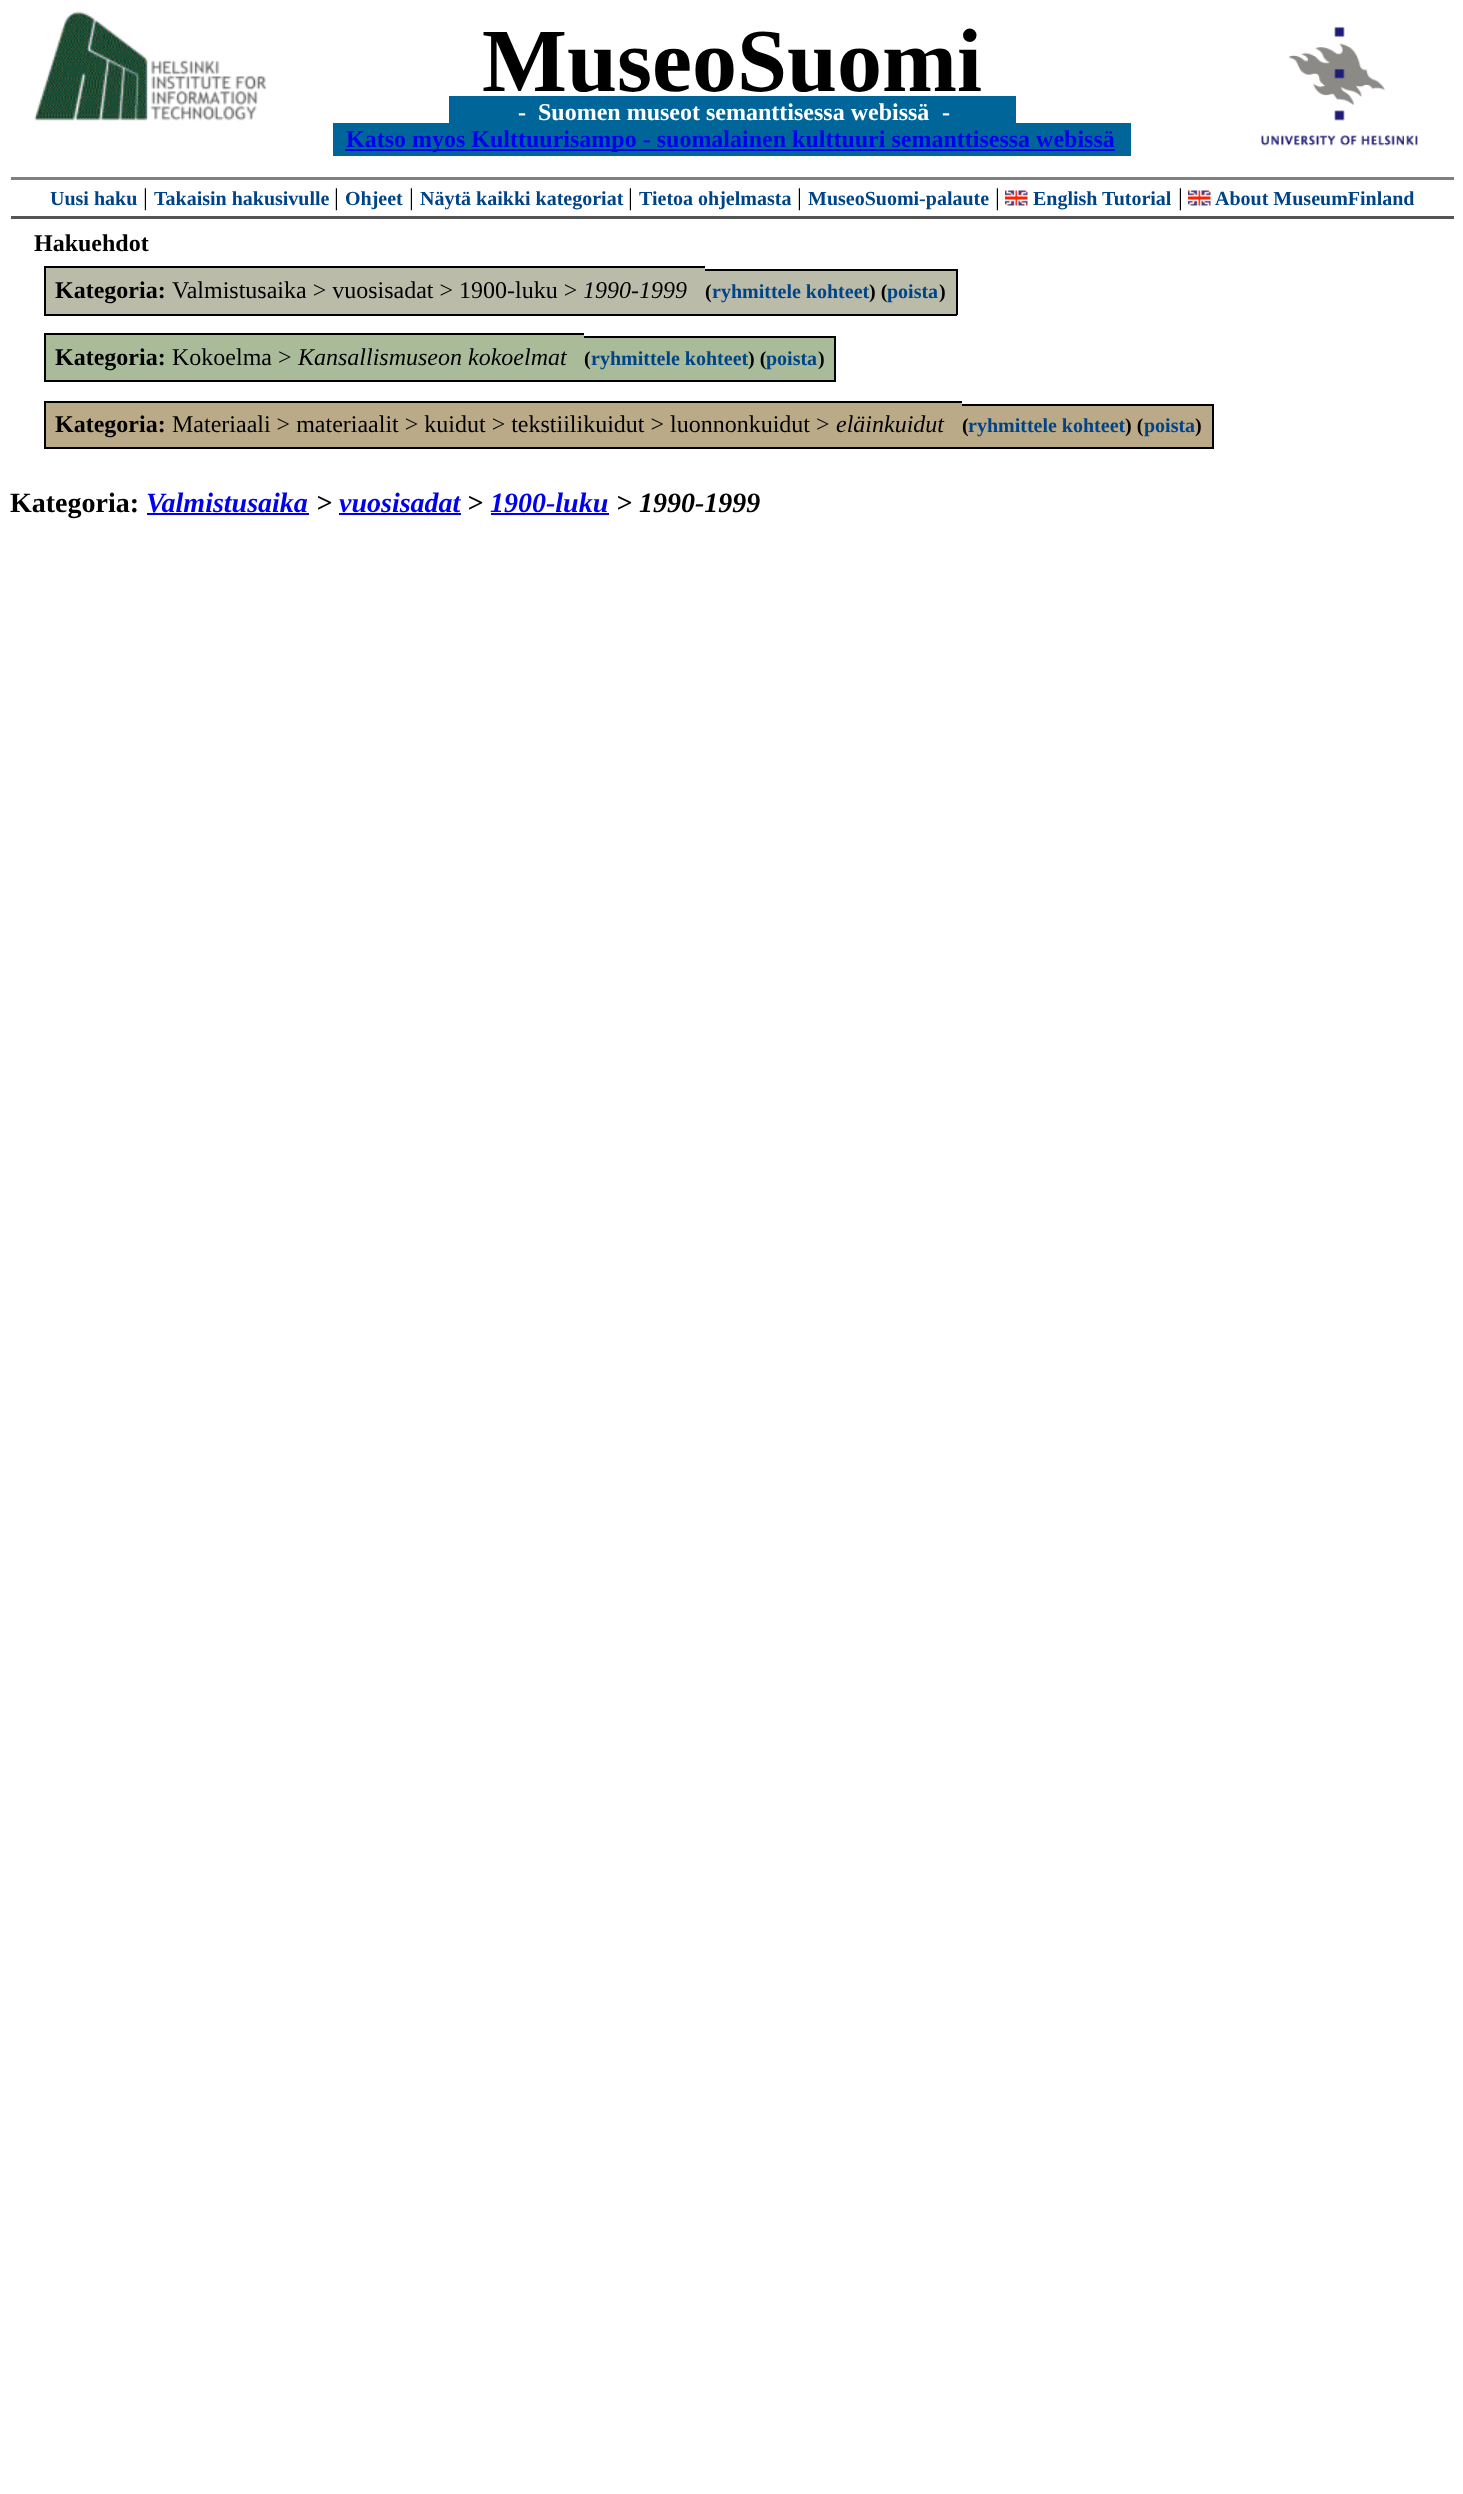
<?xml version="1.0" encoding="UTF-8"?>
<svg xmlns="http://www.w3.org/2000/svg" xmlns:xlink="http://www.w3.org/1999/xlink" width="1463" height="2494">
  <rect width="100%" height="100%" fill="#ffffff" />
  <image x="34" y="11" width="233" height="110" xlink:href="image1.png" />
  <image x="1261" y="26" width="157" height="120" xlink:href="image2.png" />
  <rect x="449" y="96" width="567" height="27" fill="#006699" />
  <rect x="333" y="123" width="798" height="33" fill="#006699" />
  <rect x="345" y="149" width="770" height="2" fill="#0000ee" />
  <rect x="11" y="177" width="1443" height="3" fill="#808080" />
  <rect x="11" y="216" width="1443" height="3" fill="#555555" />
  <image x="1005" y="190" width="23" height="16" xlink:href="image3.png" />
  <image x="1188" y="190" width="23" height="16" xlink:href="image4.png" />
  <rect x="44" y="266" width="661" height="2" fill="#000000" />
  <rect x="44" y="314" width="661" height="2" fill="#000000" />
  <rect x="44" y="266" width="2" height="49" fill="#000000" />
  <rect x="46" y="268" width="659" height="46" fill="#bbbbaa" />
  <rect x="705" y="269" width="8" height="46" fill="#bbbbaa" />
  <rect x="705" y="269" width="176" height="2" fill="#000000" />
  <rect x="705" y="314" width="176" height="2" fill="#000000" />
  <rect x="713" y="271" width="168" height="43" fill="#bbbbaa" />
  <rect x="881" y="269" width="7" height="46" fill="#bbbbaa" />
  <rect x="881" y="269" width="76" height="2" fill="#000000" />
  <rect x="881" y="314" width="58" height="2" fill="#000000" />
  <rect x="888" y="271" width="68" height="43" fill="#bbbbaa" />
  <rect x="956" y="269" width="2" height="46" fill="#000000" />
  <rect x="939" y="314" width="18" height="2" fill="#000000" />
  <rect x="44" y="333" width="540" height="2" fill="#000000" />
  <rect x="44" y="380" width="540" height="2" fill="#000000" />
  <rect x="44" y="333" width="2" height="48" fill="#000000" />
  <rect x="46" y="335" width="538" height="45" fill="#aabb99" />
  <rect x="584" y="336" width="7" height="45" fill="#aabb99" />
  <rect x="584" y="336" width="175" height="2" fill="#000000" />
  <rect x="584" y="380" width="175" height="2" fill="#000000" />
  <rect x="591" y="338" width="168" height="42" fill="#aabb99" />
  <rect x="759" y="336" width="8" height="45" fill="#aabb99" />
  <rect x="759" y="336" width="77" height="2" fill="#000000" />
  <rect x="759" y="380" width="59" height="2" fill="#000000" />
  <rect x="767" y="338" width="67" height="42" fill="#aabb99" />
  <rect x="834" y="336" width="2" height="45" fill="#000000" />
  <rect x="818" y="380" width="18" height="2" fill="#000000" />
  <rect x="44" y="401" width="918" height="2" fill="#000000" />
  <rect x="44" y="447" width="918" height="2" fill="#000000" />
  <rect x="44" y="401" width="2" height="48" fill="#000000" />
  <rect x="46" y="403" width="916" height="44" fill="#bbaa88" />
  <rect x="962" y="404" width="7" height="45" fill="#bbaa88" />
  <rect x="962" y="404" width="175" height="2" fill="#000000" />
  <rect x="962" y="447" width="175" height="2" fill="#000000" />
  <rect x="969" y="406" width="168" height="41" fill="#bbaa88" />
  <rect x="1137" y="404" width="8" height="45" fill="#bbaa88" />
  <rect x="1137" y="404" width="77" height="2" fill="#000000" />
  <rect x="1137" y="447" width="59" height="2" fill="#000000" />
  <rect x="1145" y="406" width="67" height="41" fill="#bbaa88" />
  <rect x="1212" y="404" width="2" height="45" fill="#000000" />
  <rect x="1196" y="447" width="18" height="2" fill="#000000" />
  <rect x="147" y="513" width="162" height="2" fill="#0000ee" />
  <rect x="339" y="513" width="122" height="2" fill="#0000ee" />
  <rect x="491" y="513" width="118" height="2" fill="#0000ee" />
  <text x="482" y="91" style="font-family: Liberation Serif; font-size: 90px; font-weight: bold; fill: #000000">MuseoSuomi</text>
  <text x="518" y="120" style="font-family: Liberation Serif; font-size: 24px; font-weight: bold; fill: #ffffff">-</text>
  <text x="538" y="120" style="font-family: Liberation Serif; font-size: 24px; font-weight: bold; fill: #ffffff">Suomen museot semanttisessa webissä</text>
  <text x="942" y="120" style="font-family: Liberation Serif; font-size: 24px; font-weight: bold; fill: #ffffff">-</text>
  <text x="346" y="147" style="font-family: Liberation Serif; font-size: 24px; font-weight: bold; fill: #0000ee">Katso myos Kulttuurisampo - suomalainen kulttuuri semanttisessa webissä</text>
  <text x="50" y="205" style="font-family: Liberation Serif; font-size: 20px; font-weight: bold; fill: #004488">Uusi haku</text>
  <text x="143" y="205" style="font-family: Liberation Serif; font-size: 24px; fill: #000000">|</text>
  <text x="154" y="205" style="font-family: Liberation Serif; font-size: 20px; font-weight: bold; fill: #004488">Takaisin hakusivulle</text>
  <text x="334" y="205" style="font-family: Liberation Serif; font-size: 24px; fill: #000000">|</text>
  <text x="345" y="205" style="font-family: Liberation Serif; font-size: 20px; font-weight: bold; fill: #004488">Ohjeet</text>
  <text x="409" y="205" style="font-family: Liberation Serif; font-size: 24px; fill: #000000">|</text>
  <text x="420" y="205" style="font-family: Liberation Serif; font-size: 20px; font-weight: bold; fill: #004488">Näytä kaikki kategoriat</text>
  <text x="628" y="205" style="font-family: Liberation Serif; font-size: 24px; fill: #000000">|</text>
  <text x="639" y="205" style="font-family: Liberation Serif; font-size: 20px; font-weight: bold; fill: #004488">Tietoa ohjelmasta</text>
  <text x="797" y="205" style="font-family: Liberation Serif; font-size: 24px; fill: #000000">|</text>
  <text x="808" y="205" style="font-family: Liberation Serif; font-size: 20px; font-weight: bold; fill: #004488">MuseoSuomi-palaute</text>
  <text x="995" y="205" style="font-family: Liberation Serif; font-size: 24px; fill: #000000">|</text>
  <text x="1033" y="205" style="font-family: Liberation Serif; font-size: 20px; font-weight: bold; fill: #004488">English Tutorial</text>
  <text x="1178" y="205" style="font-family: Liberation Serif; font-size: 24px; fill: #000000">|</text>
  <text x="1215" y="205" style="font-family: Liberation Serif; font-size: 20px; font-weight: bold; fill: #004488">About MuseumFinland</text>
  <text x="34" y="251" style="font-family: Liberation Serif; font-size: 24px; font-weight: bold; fill: #000000">Hakuehdot</text>
  <text x="55" y="298" style="font-family: Liberation Serif; font-size: 24px; font-weight: bold; fill: #000000">Kategoria:</text>
  <text x="172" y="298" style="font-family: Liberation Serif; font-size: 24px; fill: #000000">Valmistusaika &gt; vuosisadat &gt; 1900-luku &gt;</text>
  <text x="583" y="298" style="font-family: Liberation Serif; font-size: 24px; font-style: italic; fill: #000000">1990-1999</text>
  <text x="705" y="298" style="font-family: Liberation Serif; font-size: 20px; font-weight: bold; fill: #000000">(</text>
  <text x="712" y="298" style="font-family: Liberation Serif; font-size: 20px; font-weight: bold; fill: #004488">ryhmittele kohteet</text>
  <text x="869" y="298" style="font-family: Liberation Serif; font-size: 20px; font-weight: bold; fill: #000000">) (</text>
  <text x="887" y="298" style="font-family: Liberation Serif; font-size: 20px; font-weight: bold; fill: #004488">poista</text>
  <text x="939" y="298" style="font-family: Liberation Serif; font-size: 20px; font-weight: bold; fill: #000000">)</text>
  <text x="55" y="365" style="font-family: Liberation Serif; font-size: 24px; font-weight: bold; fill: #000000">Kategoria:</text>
  <text x="172" y="365" style="font-family: Liberation Serif; font-size: 24px; fill: #000000">Kokoelma &gt;</text>
  <text x="298" y="365" style="font-family: Liberation Serif; font-size: 24px; font-style: italic; fill: #000000">Kansallismuseon kokoelmat</text>
  <text x="584" y="365" style="font-family: Liberation Serif; font-size: 20px; font-weight: bold; fill: #000000">(</text>
  <text x="591" y="365" style="font-family: Liberation Serif; font-size: 20px; font-weight: bold; fill: #004488">ryhmittele kohteet</text>
  <text x="748" y="365" style="font-family: Liberation Serif; font-size: 20px; font-weight: bold; fill: #000000">) (</text>
  <text x="766" y="365" style="font-family: Liberation Serif; font-size: 20px; font-weight: bold; fill: #004488">poista</text>
  <text x="818" y="365" style="font-family: Liberation Serif; font-size: 20px; font-weight: bold; fill: #000000">)</text>
  <text x="55" y="432" style="font-family: Liberation Serif; font-size: 24px; font-weight: bold; fill: #000000">Kategoria:</text>
  <text x="172" y="432" style="font-family: Liberation Serif; font-size: 24px; fill: #000000">Materiaali &gt; materiaalit &gt; kuidut &gt; tekstiilikuidut &gt; luonnonkuidut &gt;</text>
  <text x="836" y="432" style="font-family: Liberation Serif; font-size: 24px; font-style: italic; fill: #000000">eläinkuidut</text>
  <text x="962" y="432" style="font-family: Liberation Serif; font-size: 20px; font-weight: bold; fill: #000000">(</text>
  <text x="968" y="432" style="font-family: Liberation Serif; font-size: 20px; font-weight: bold; fill: #004488">ryhmittele kohteet</text>
  <text x="1125" y="432" style="font-family: Liberation Serif; font-size: 20px; font-weight: bold; fill: #000000">) (</text>
  <text x="1144" y="432" style="font-family: Liberation Serif; font-size: 20px; font-weight: bold; fill: #004488">poista</text>
  <text x="1195" y="432" style="font-family: Liberation Serif; font-size: 20px; font-weight: bold; fill: #000000">)</text>
  <text x="10" y="512" style="font-family: Liberation Serif; font-size: 28px; font-weight: bold; fill: #000000">Kategoria:</text>
  <text x="146" y="512" style="font-family: Liberation Serif; font-size: 28px; font-weight: bold; font-style: italic; fill: #0000ee">Valmistusaika</text>
  <text x="316" y="512" style="font-family: Liberation Serif; font-size: 28px; font-weight: bold; font-style: italic; fill: #000000">&gt;</text>
  <text x="339" y="512" style="font-family: Liberation Serif; font-size: 28px; font-weight: bold; font-style: italic; fill: #0000ee">vuosisadat</text>
  <text x="467" y="512" style="font-family: Liberation Serif; font-size: 28px; font-weight: bold; font-style: italic; fill: #000000">&gt;</text>
  <text x="490" y="512" style="font-family: Liberation Serif; font-size: 28px; font-weight: bold; font-style: italic; fill: #0000ee">1900-luku</text>
  <text x="616" y="512" style="font-family: Liberation Serif; font-size: 28px; font-weight: bold; font-style: italic; fill: #000000">&gt; 1990-1999</text>
</svg>
